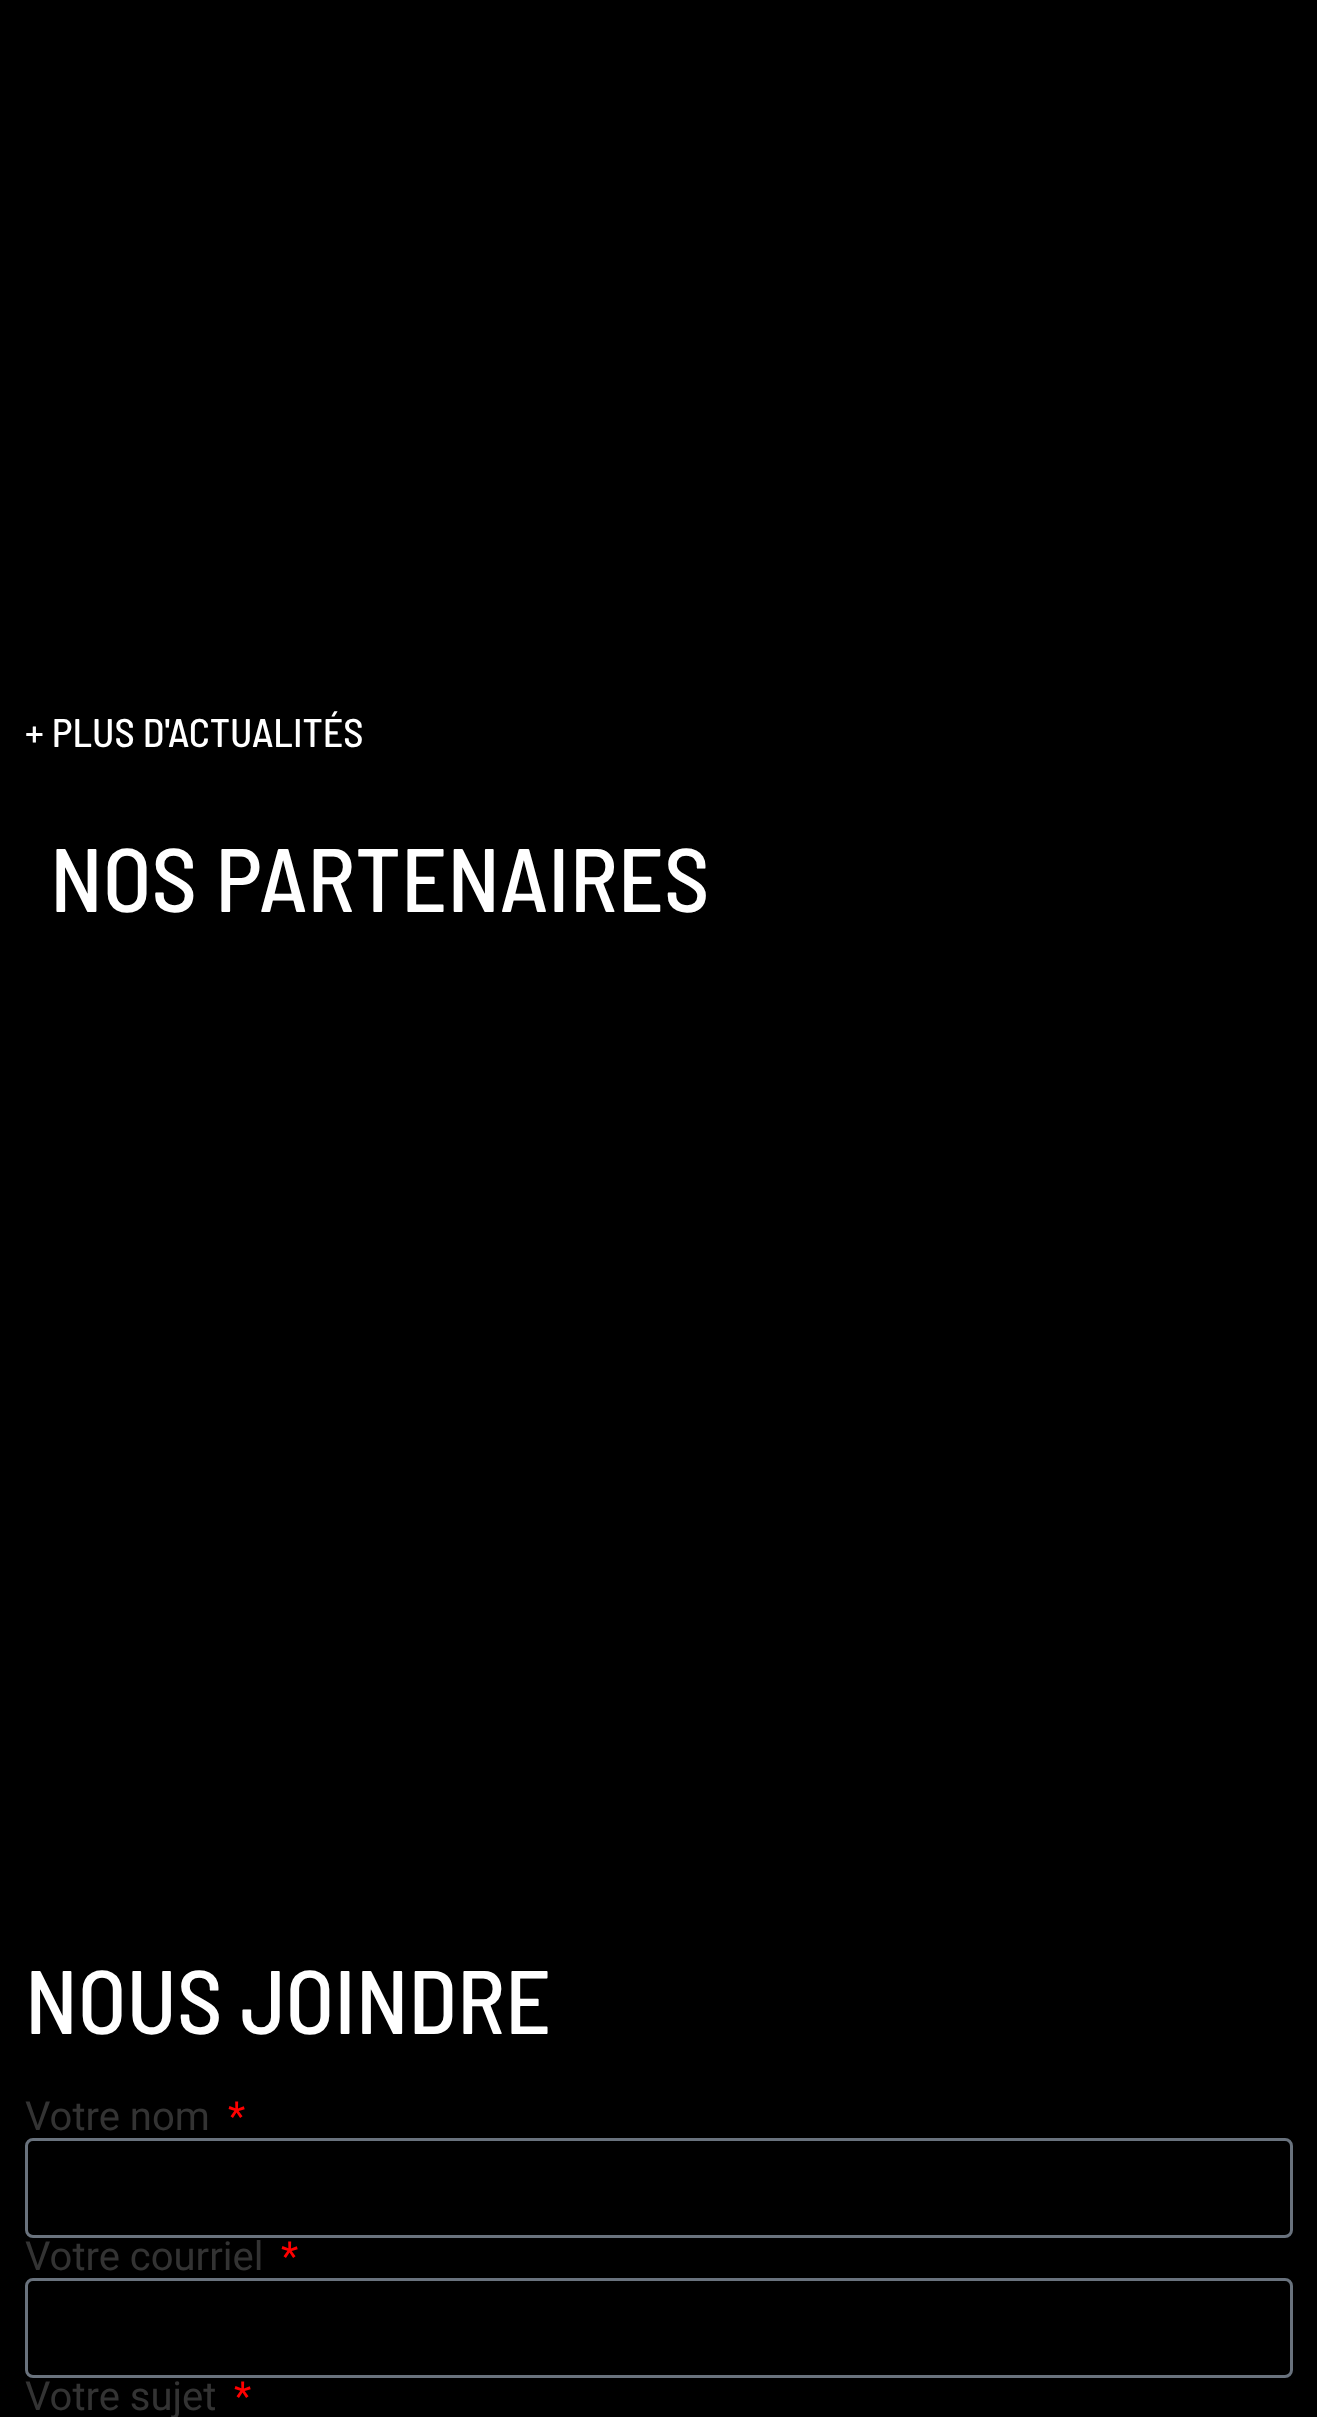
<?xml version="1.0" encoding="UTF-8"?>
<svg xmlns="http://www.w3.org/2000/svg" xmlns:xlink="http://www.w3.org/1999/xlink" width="1317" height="2417">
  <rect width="100%" height="100%" fill="#000000" />
  <rect x="26.5" y="2139.5" width="1265" height="97" rx="6.5" fill="none" stroke="#69727d" stroke-width="3" />
  <rect x="26.5" y="2279.5" width="1265" height="97" rx="6.5" fill="none" stroke="#69727d" stroke-width="3" />
  <text x="25" y="747" style="font-family: Barlow Semi Condensed; font-size: 40px; font-weight: 500; fill: #ffffff">+ PLUS D'ACTUALITÉS</text>
  <text x="50" y="912" style="font-family: Barlow Semi Condensed; font-size: 90px; font-weight: 500; fill: #ffffff">NOS PARTENAIRES</text>
  <text x="25" y="2034" style="font-family: Barlow Semi Condensed; font-size: 90px; font-weight: 500; fill: #ffffff">NOUS JOINDRE</text>
  <text x="25" y="2130" style="font-family: Roboto; font-size: 40px; fill: #333333">Votre nom</text>
  <text x="228" y="2130" style="font-family: Roboto; font-size: 40px; fill: #ff0000">*</text>
  <text x="25" y="2270" style="font-family: Roboto; font-size: 40px; fill: #333333">Votre courriel</text>
  <text x="281" y="2270" style="font-family: Roboto; font-size: 40px; fill: #ff0000">*</text>
  <text x="25" y="2410" style="font-family: Roboto; font-size: 40px; fill: #333333">Votre sujet</text>
  <text x="234" y="2410" style="font-family: Roboto; font-size: 40px; fill: #ff0000">*</text>
</svg>
